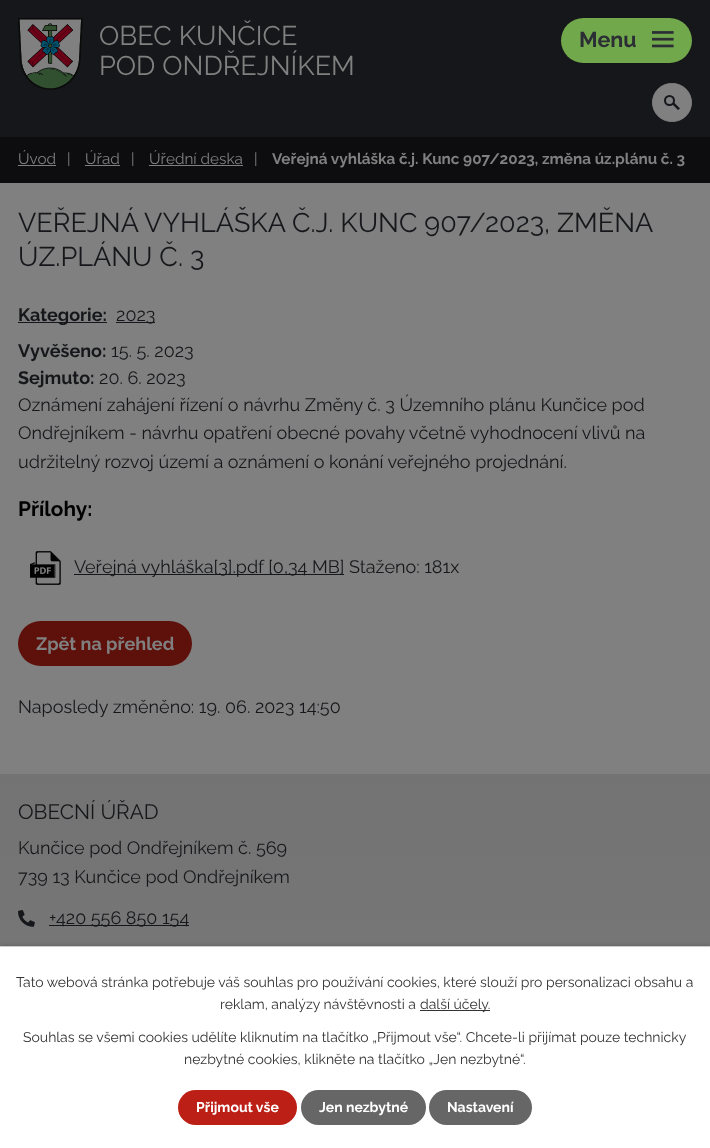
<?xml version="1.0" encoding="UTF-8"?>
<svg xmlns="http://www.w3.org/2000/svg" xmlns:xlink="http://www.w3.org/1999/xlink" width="710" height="1148">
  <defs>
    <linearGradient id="g1" gradientUnits="userSpaceOnUse" x1="355" y1="774" x2="355" y2="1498"><stop offset="0" stop-color="#737373" /><stop offset="1" stop-color="#808080" /></linearGradient>
  </defs>
  <rect width="100%" height="100%" fill="#808080" />
  <rect width="710" height="137" fill="#16171a" />
  <image x="18" y="18" width="65" height="72" xlink:href="image1.png" />
  <rect x="652.5" y="83.5" width="39" height="38" rx="19" fill="#808080" stroke="#808080" />
  <circle cx="669.5" cy="100.5" r="4.5" fill="none" stroke="#16171a" stroke-width="2" />
  <path d="M 674 102.5 l 6 6 l -2 1.5 l -5.5 -5.5 z" fill="#16171a" />
  <rect x="561" y="18" width="131" height="45" rx="22.5" fill="#72a84c" />
  <image x="652" y="31" width="22" height="17" xlink:href="image2.png" />
  <rect y="137" width="710" height="46" fill="#0d0d0f" />
  <rect x="18" y="165" width="38" height="1" fill="#808080" />
  <rect x="85" y="165" width="35" height="1" fill="#808080" />
  <rect x="149" y="165" width="94" height="1" fill="#808080" />
  <rect x="18" y="322" width="89" height="1" fill="#16171a" />
  <rect x="116" y="322" width="39" height="1" fill="#16171a" />
  <image x="30" y="551" width="31" height="34" xlink:href="image3.png" />
  <rect x="74" y="574" width="270" height="1" fill="#16171a" />
  <rect x="18" y="621" width="174" height="45" rx="22.5" fill="#5e100b" />
  <rect y="774" width="710" height="172" fill="url(#g1)" />
  <image x="18" y="910" width="17" height="17" xlink:href="image4.png" />
  <rect x="49" y="925" width="140" height="1" fill="#16171a" />
  <rect y="946" width="710" height="202" fill="#000000" fill-opacity="0.2" filter="blur(2.5px)" />
  <rect y="947" width="710" height="201" fill="#ffffff" />
  <rect y="946" width="710" height="1" fill="#cccccc" />
  <rect x="420" y="1010" width="70" height="1" fill="#333333" />
  <rect x="178" y="1090" width="119" height="35" rx="17.5" fill="#bc1f15" />
  <rect x="301" y="1090" width="125" height="35" rx="17.5" fill="#666666" />
  <rect x="429" y="1090" width="103" height="35" rx="17.5" fill="#666666" />
  <text x="99" y="45" style="font-family: Raleway; font-size: 27px; fill: #808080">OBEC KUNČICE</text>
  <text x="99" y="75" style="font-family: Raleway; font-size: 27px; fill: #808080">POD ONDŘEJNÍKEM</text>
  <text x="579" y="47" style="font-family: Raleway; font-size: 21.5px; font-weight: bold; fill: #2b2e34">Menu</text>
  <text x="18" y="164" style="font-family: Raleway; font-size: 15.3px; fill: #808080">Úvod</text>
  <text x="67" y="164" style="font-family: Raleway; font-size: 15.3px; fill: #808080">|</text>
  <text x="85" y="164" style="font-family: Raleway; font-size: 15.3px; fill: #808080">Úřad</text>
  <text x="131" y="164" style="font-family: Raleway; font-size: 15.3px; fill: #808080">|</text>
  <text x="149" y="164" style="font-family: Raleway; font-size: 15.3px; fill: #808080">Úřední deska</text>
  <text x="254" y="164" style="font-family: Raleway; font-size: 15.3px; fill: #808080">|</text>
  <text x="272" y="164" style="font-family: Raleway; font-size: 15.3px; font-weight: bold; fill: #808080">Veřejná vyhláška č.j. Kunc 907/2023, změna úz.plánu č. 3</text>
  <text x="18" y="232" style="font-family: Raleway; font-size: 27px; fill: #16171a">VEŘEJNÁ VYHLÁŠKA Č.J. KUNC 907/2023, ZMĚNA</text>
  <text x="18" y="266" style="font-family: Raleway; font-size: 27px; fill: #16171a">ÚZ.PLÁNU Č. 3</text>
  <text x="18" y="321" style="font-family: Raleway; font-size: 18px; font-weight: bold; fill: #16171a">Kategorie:</text>
  <text x="116" y="321" style="font-family: Raleway; font-size: 18px; fill: #16171a">2023</text>
  <text x="18" y="357" style="font-family: Raleway; font-size: 18px; font-weight: bold; fill: #16171a">Vyvěšeno:</text>
  <text x="111" y="357" style="font-family: Raleway; font-size: 18px; fill: #16171a">15. 5. 2023</text>
  <text x="18" y="384" style="font-family: Raleway; font-size: 18px; font-weight: bold; fill: #16171a">Sejmuto:</text>
  <text x="99" y="384" style="font-family: Raleway; font-size: 18px; fill: #16171a">20. 6. 2023</text>
  <text x="18" y="411" style="font-family: Raleway; font-size: 18px; fill: #16171a">Oznámení zahájení řízení o návrhu Změny č. 3 Územního plánu Kunčice pod</text>
  <text x="18" y="439" style="font-family: Raleway; font-size: 18px; fill: #16171a">Ondřejníkem - návrhu opatření obecné povahy včetně vyhodnocení vlivů na</text>
  <text x="18" y="468" style="font-family: Raleway; font-size: 18px; fill: #16171a">udržitelný rozvoj území a oznámení o konání veřejného projednání.</text>
  <text x="18" y="516" style="font-family: Raleway; font-size: 20.75px; font-weight: bold; fill: #000000">Přílohy:</text>
  <text x="74" y="573" style="font-family: Raleway; font-size: 18px; fill: #16171a">Veřejná vyhláška[3].pdf [0,34 MB] Staženo: 181x</text>
  <text x="36" y="650" style="font-family: Raleway; font-size: 18px; font-weight: bold; fill: #808080">Zpět na přehled</text>
  <text x="18" y="713" style="font-family: Raleway; font-size: 18px; fill: #16171a">Naposledy změněno: 19. 06. 2023 14:50</text>
  <text x="18" y="819" style="font-family: Raleway; font-size: 20.75px; fill: #16171a">OBECNÍ ÚŘAD</text>
  <text x="18" y="854" style="font-family: Raleway; font-size: 18px; fill: #16171a">Kunčice pod Ondřejníkem č. 569</text>
  <text x="18" y="883" style="font-family: Raleway; font-size: 18px; fill: #16171a">739 13 Kunčice pod Ondřejníkem</text>
  <text x="49" y="924" style="font-family: Raleway; font-size: 18px; fill: #16171a">+420 556 850 154</text>
  <text x="16" y="987" style="font-family: Raleway; font-size: 14px; fill: #333333">Tato webová stránka potřebuje váš souhlas pro používání cookies, které slouží pro personalizaci obsahu a</text>
  <text x="220" y="1009" style="font-family: Raleway; font-size: 14px; fill: #333333">reklam, analýzy návštěvnosti a</text>
  <text x="420" y="1009" style="font-family: Raleway; font-size: 14px; fill: #333333">další účely.</text>
  <text x="23" y="1042" style="font-family: Raleway; font-size: 14px; fill: #333333">Souhlas se všemi cookies udělíte kliknutím na tlačítko „Přijmout vše“. Chcete-li přijímat pouze technicky</text>
  <text x="184" y="1064" style="font-family: Raleway; font-size: 14px; fill: #333333">nezbytné cookies, klikněte na tlačítko „Jen nezbytné“.</text>
  <text x="196" y="1112" style="font-family: Raleway; font-size: 14px; font-weight: bold; fill: #ffffff">Přijmout vše</text>
  <text x="319" y="1112" style="font-family: Raleway; font-size: 14px; font-weight: bold; fill: #ffffff">Jen nezbytné</text>
  <text x="447" y="1112" style="font-family: Raleway; font-size: 14px; font-weight: bold; fill: #ffffff">Nastavení</text>
</svg>
